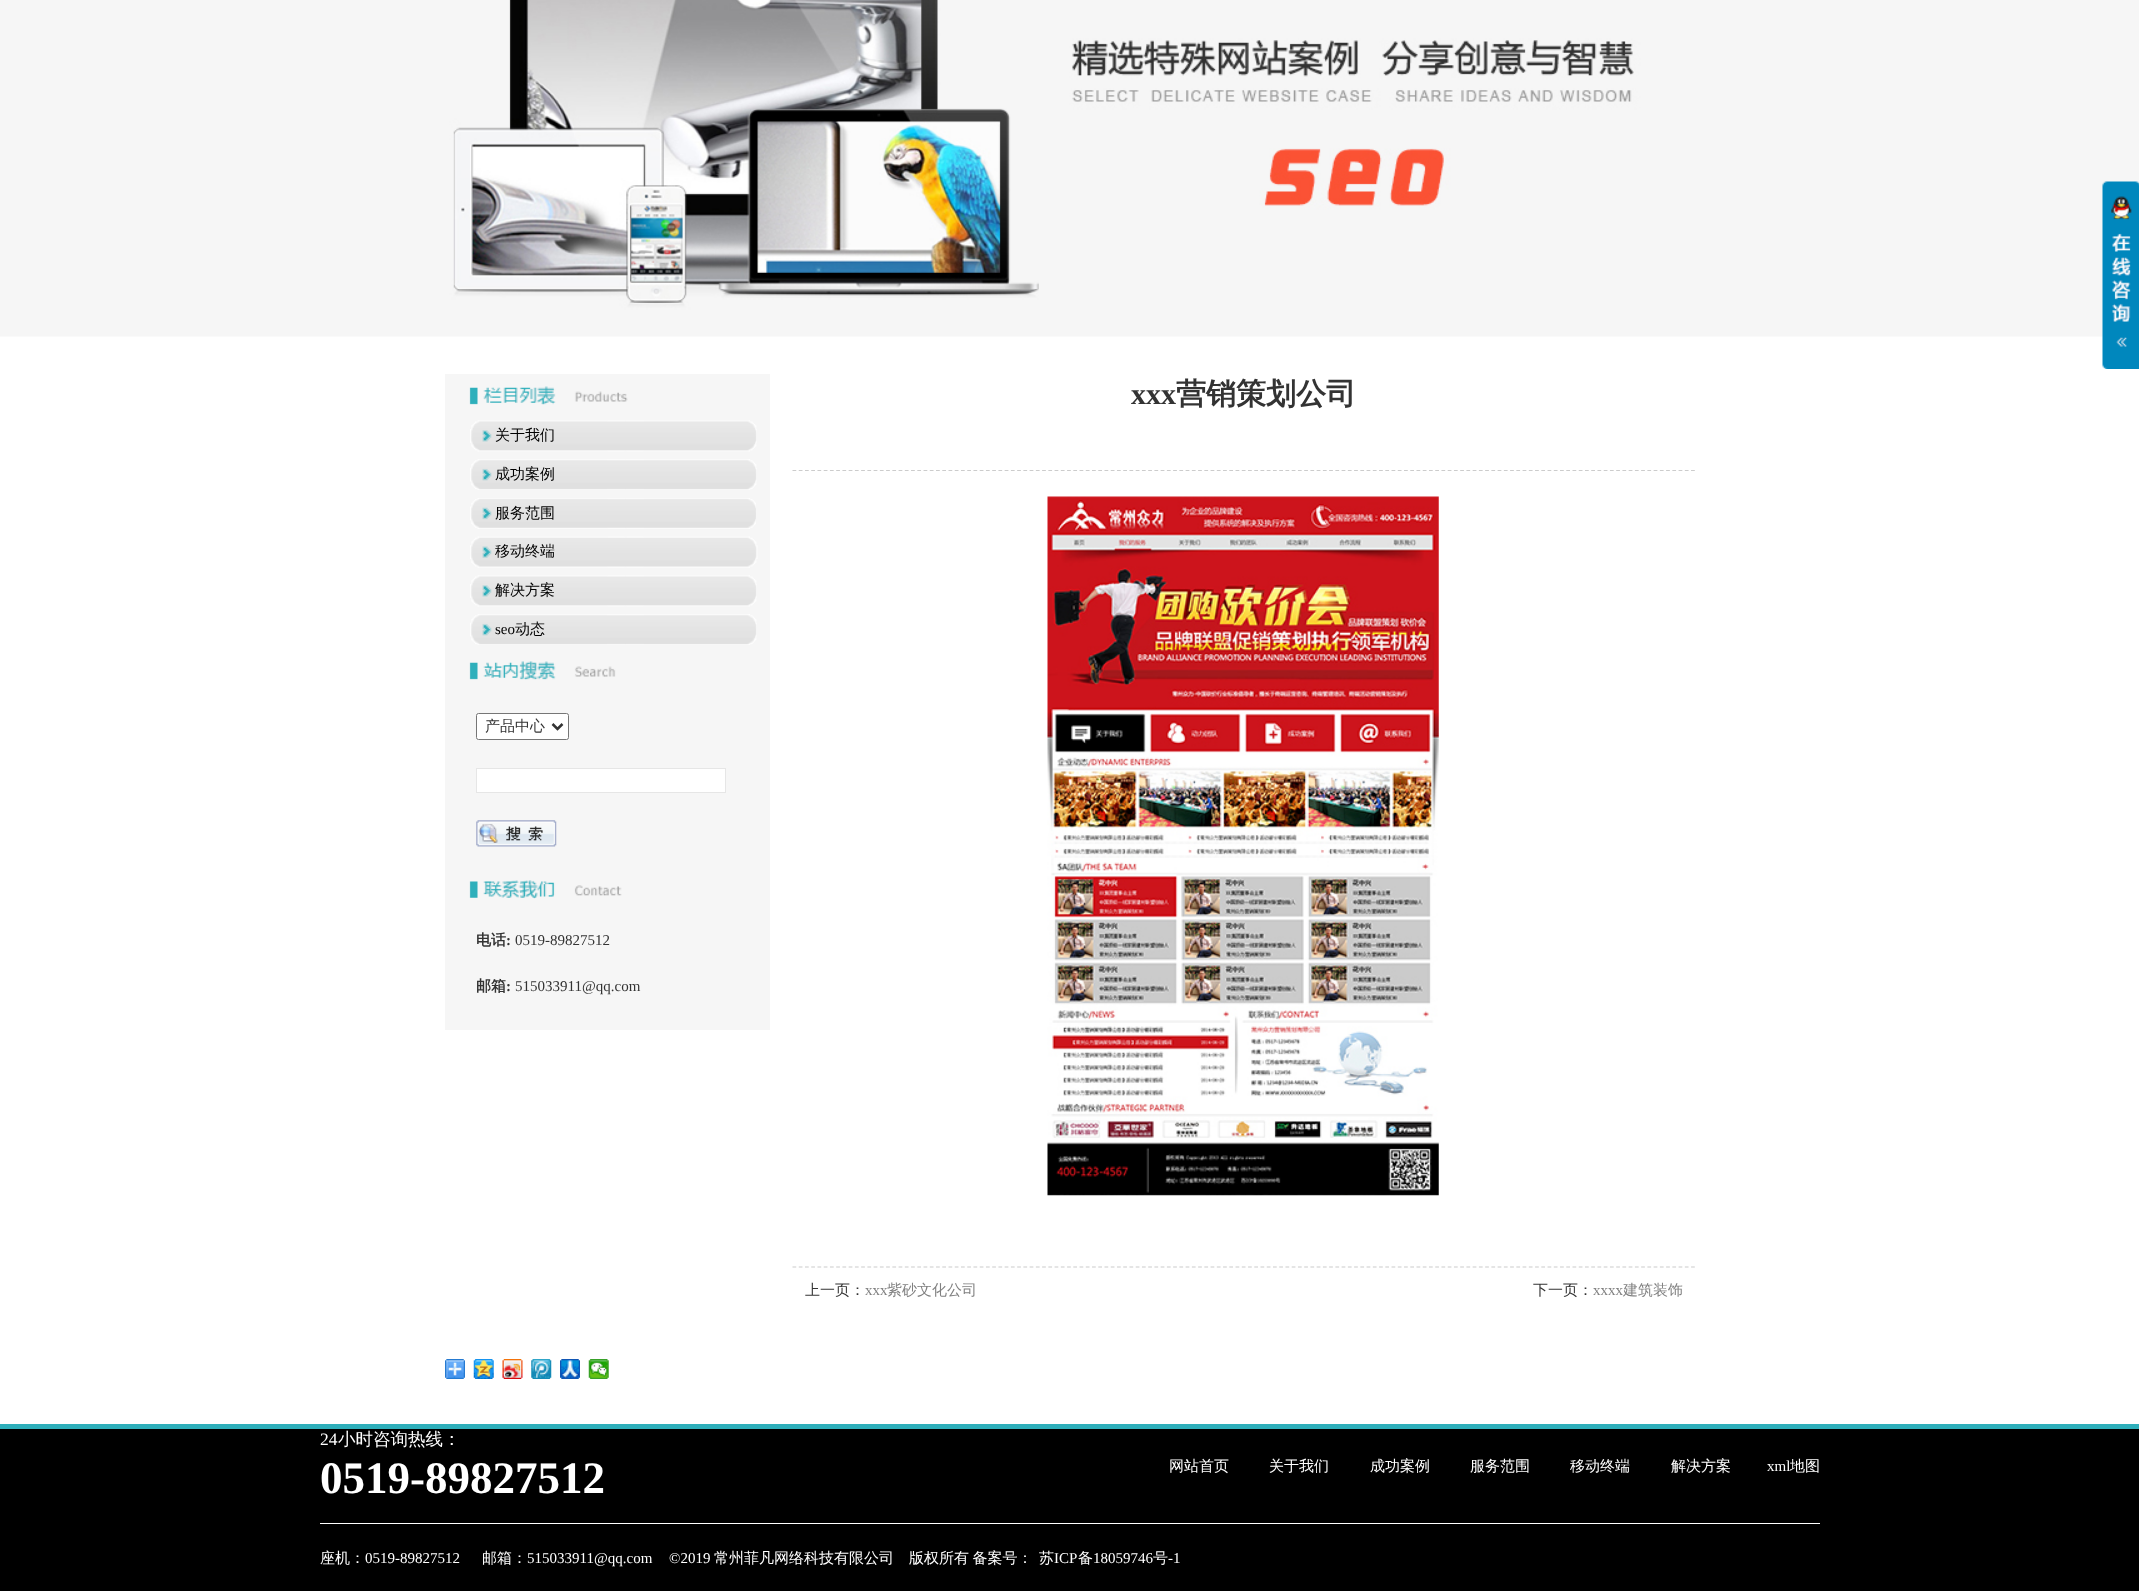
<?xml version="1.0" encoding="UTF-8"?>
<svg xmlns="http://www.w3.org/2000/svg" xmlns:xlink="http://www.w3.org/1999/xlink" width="2139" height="1591">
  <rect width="100%" height="100%" fill="#ffffff" />
  <image x="0" y="0" width="2139" height="337" xlink:href="image1.png" />
  <image x="2102" y="181" width="37" height="188" xlink:href="image2.png" />
  <rect x="445" y="374" width="325" height="656" fill="#f6f6f6" />
  <image x="469" y="386" width="159" height="19" xlink:href="image3.png" />
  <image x="470" y="420" width="287" height="32" xlink:href="image4.png" />
  <image x="470" y="459" width="287" height="31" xlink:href="image5.png" />
  <image x="470" y="498" width="286" height="31" xlink:href="image6.png" />
  <image x="470" y="536" width="288" height="32" xlink:href="image7.png" />
  <image x="470" y="575" width="287" height="32" xlink:href="image4.png" />
  <image x="470" y="614" width="287" height="31" xlink:href="image5.png" />
  <image x="469" y="661" width="147" height="19" xlink:href="image8.png" />
  <rect x="476.5" y="713.5" width="92" height="26" rx="2" fill="#ffffff" stroke="#767676" />
  <path d="M 552.5 724 l 5 5 l 5 -5" fill="none" stroke="#333333" stroke-width="2.5" />
  <rect x="476.5" y="768.5" width="249" height="24" fill="#ffffff" stroke="#e6e6e6" />
  <image x="476" y="820" width="81" height="27" xlink:href="image9.png" />
  <image x="469" y="880" width="153" height="19" xlink:href="image10.png" />
  <path d="M 792.5 470.5 h 902.5" fill="none" stroke="#cccccc" stroke-width="1.2" stroke-dasharray="3.75 2.49" />
  <image x="1047" y="496" width="392" height="700" xlink:href="image11.png" />
  <path d="M 792.5 1267 h 902.5" fill="none" stroke="#cccccc" stroke-width="1.2" stroke-dasharray="3.75 2.49" />
  <image x="445" y="1359" width="20" height="20" xlink:href="image12.png" />
  <image x="473" y="1359" width="21" height="20" xlink:href="image13.png" />
  <image x="502" y="1359" width="21" height="20" xlink:href="image14.png" />
  <image x="531" y="1359" width="21" height="20" xlink:href="image15.png" />
  <image x="560" y="1359" width="20" height="20" xlink:href="image16.png" />
  <image x="588" y="1359" width="21" height="20" xlink:href="image17.png" />
  <rect y="1429" width="2139" height="162" fill="#000000" />
  <rect y="1424" width="2139" height="5" fill="#2eafbb" />
  <rect x="320" y="1523" width="1500" height="1" fill="#ffffff" />
  <text x="495" y="440" style="font-family: WenQuanYi Zen Hei; font-size: 15px; font-weight: 500; fill: #000000">关于我们</text>
  <text x="495" y="479" style="font-family: WenQuanYi Zen Hei; font-size: 15px; font-weight: 500; fill: #000000">成功案例</text>
  <text x="495" y="518" style="font-family: WenQuanYi Zen Hei; font-size: 15px; font-weight: 500; fill: #000000">服务范围</text>
  <text x="495" y="556" style="font-family: WenQuanYi Zen Hei; font-size: 15px; font-weight: 500; fill: #000000">移动终端</text>
  <text x="495" y="595" style="font-family: WenQuanYi Zen Hei; font-size: 15px; font-weight: 500; fill: #000000">解决方案</text>
  <text x="495" y="634" style="font-family: Liberation Serif; font-size: 15px; fill: #000000">seo</text>
  <text x="515" y="634" style="font-family: WenQuanYi Zen Hei; font-size: 15px; font-weight: 500; fill: #000000">动态</text>
  <text x="485" y="731" style="font-family: WenQuanYi Zen Hei; font-size: 15px; font-weight: 500; fill: #333333">产品中心</text>
  <text x="476" y="945" style="font-family: WenQuanYi Zen Hei; font-size: 15px; font-weight: bold; fill: #333333">电话</text>
  <text x="506" y="945" style="font-family: Liberation Serif; font-size: 15px; font-weight: bold; fill: #333333">:</text>
  <text x="515" y="945" style="font-family: Liberation Serif; font-size: 15px; fill: #333333">0519-89827512</text>
  <text x="476" y="991" style="font-family: WenQuanYi Zen Hei; font-size: 15px; font-weight: bold; fill: #333333">邮箱</text>
  <text x="506" y="991" style="font-family: Liberation Serif; font-size: 15px; font-weight: bold; fill: #333333">:</text>
  <text x="515" y="991" style="font-family: Liberation Serif; font-size: 15px; fill: #333333">515033911@qq.com</text>
  <text x="1131" y="404" style="font-family: Liberation Serif; font-size: 30px; font-weight: bold; fill: #333333">xxx</text>
  <text x="1176" y="404" style="font-family: WenQuanYi Zen Hei; font-size: 30px; font-weight: bold; fill: #333333">营销策划公司</text>
  <text x="805" y="1295" style="font-family: WenQuanYi Zen Hei; font-size: 15px; font-weight: 500; fill: #333333">上一页：</text>
  <text x="865" y="1295" style="font-family: Liberation Serif; font-size: 15px; fill: #808080">xxx</text>
  <text x="887" y="1295" style="font-family: WenQuanYi Zen Hei; font-size: 15px; font-weight: 500; fill: #808080">紫砂文化公司</text>
  <text x="1533" y="1295" style="font-family: WenQuanYi Zen Hei; font-size: 15px; font-weight: 500; fill: #333333">下一页：</text>
  <text x="1593" y="1295" style="font-family: Liberation Serif; font-size: 15px; fill: #808080">xxxx</text>
  <text x="1623" y="1295" style="font-family: WenQuanYi Zen Hei; font-size: 15px; font-weight: 500; fill: #808080">建筑装饰</text>
  <text x="320" y="1445" style="font-family: Liberation Serif; font-size: 17.5px; fill: #ffffff">24</text>
  <text x="338" y="1445" style="font-family: WenQuanYi Zen Hei; font-size: 17.5px; font-weight: 500; fill: #ffffff">小时咨询热线：</text>
  <text x="320" y="1493" style="font-family: Liberation Serif; font-size: 45px; font-weight: bold; fill: #ffffff">0519-89827512</text>
  <text x="1169" y="1471" style="font-family: WenQuanYi Zen Hei; font-size: 15px; font-weight: 500; fill: #ffffff">网站首页</text>
  <text x="1269" y="1471" style="font-family: WenQuanYi Zen Hei; font-size: 15px; font-weight: 500; fill: #ffffff">关于我们</text>
  <text x="1370" y="1471" style="font-family: WenQuanYi Zen Hei; font-size: 15px; font-weight: 500; fill: #ffffff">成功案例</text>
  <text x="1470" y="1471" style="font-family: WenQuanYi Zen Hei; font-size: 15px; font-weight: 500; fill: #ffffff">服务范围</text>
  <text x="1570" y="1471" style="font-family: WenQuanYi Zen Hei; font-size: 15px; font-weight: 500; fill: #ffffff">移动终端</text>
  <text x="1671" y="1471" style="font-family: WenQuanYi Zen Hei; font-size: 15px; font-weight: 500; fill: #ffffff">解决方案</text>
  <text x="1767" y="1471" style="font-family: Liberation Serif; font-size: 15px; fill: #ffffff">xml</text>
  <text x="1790" y="1471" style="font-family: WenQuanYi Zen Hei; font-size: 15px; font-weight: 500; fill: #ffffff">地图</text>
  <text x="320" y="1563" style="font-family: WenQuanYi Zen Hei; font-size: 15px; font-weight: 500; fill: #ffffff">座机：</text>
  <text x="365" y="1563" style="font-family: Liberation Serif; font-size: 15px; fill: #ffffff">0519-89827512</text>
  <text x="482" y="1563" style="font-family: WenQuanYi Zen Hei; font-size: 15px; font-weight: 500; fill: #ffffff">邮箱：</text>
  <text x="527" y="1563" style="font-family: Liberation Serif; font-size: 15px; fill: #ffffff">515033911@qq.com</text>
  <text x="669" y="1563" style="font-family: Liberation Serif; font-size: 15px; fill: #ffffff">©2019</text>
  <text x="714" y="1563" word-spacing="-1" style="font-family: WenQuanYi Zen Hei; font-size: 15px; font-weight: 500; fill: #ffffff">常州菲凡网络科技有限公司　版权所有 备案号：</text>
  <text x="1039" y="1563" style="font-family: WenQuanYi Zen Hei; font-size: 15px; font-weight: 500; fill: #ffffff">苏</text>
  <text x="1054" y="1563" style="font-family: Liberation Serif; font-size: 15px; fill: #ffffff">ICP</text>
  <text x="1078" y="1563" style="font-family: WenQuanYi Zen Hei; font-size: 15px; font-weight: 500; fill: #ffffff">备</text>
  <text x="1093" y="1563" style="font-family: Liberation Serif; font-size: 15px; fill: #ffffff">18059746</text>
  <text x="1153" y="1563" style="font-family: WenQuanYi Zen Hei; font-size: 15px; font-weight: 500; fill: #ffffff">号</text>
  <text x="1168" y="1563" style="font-family: Liberation Serif; font-size: 15px; fill: #ffffff">-1</text>
</svg>
